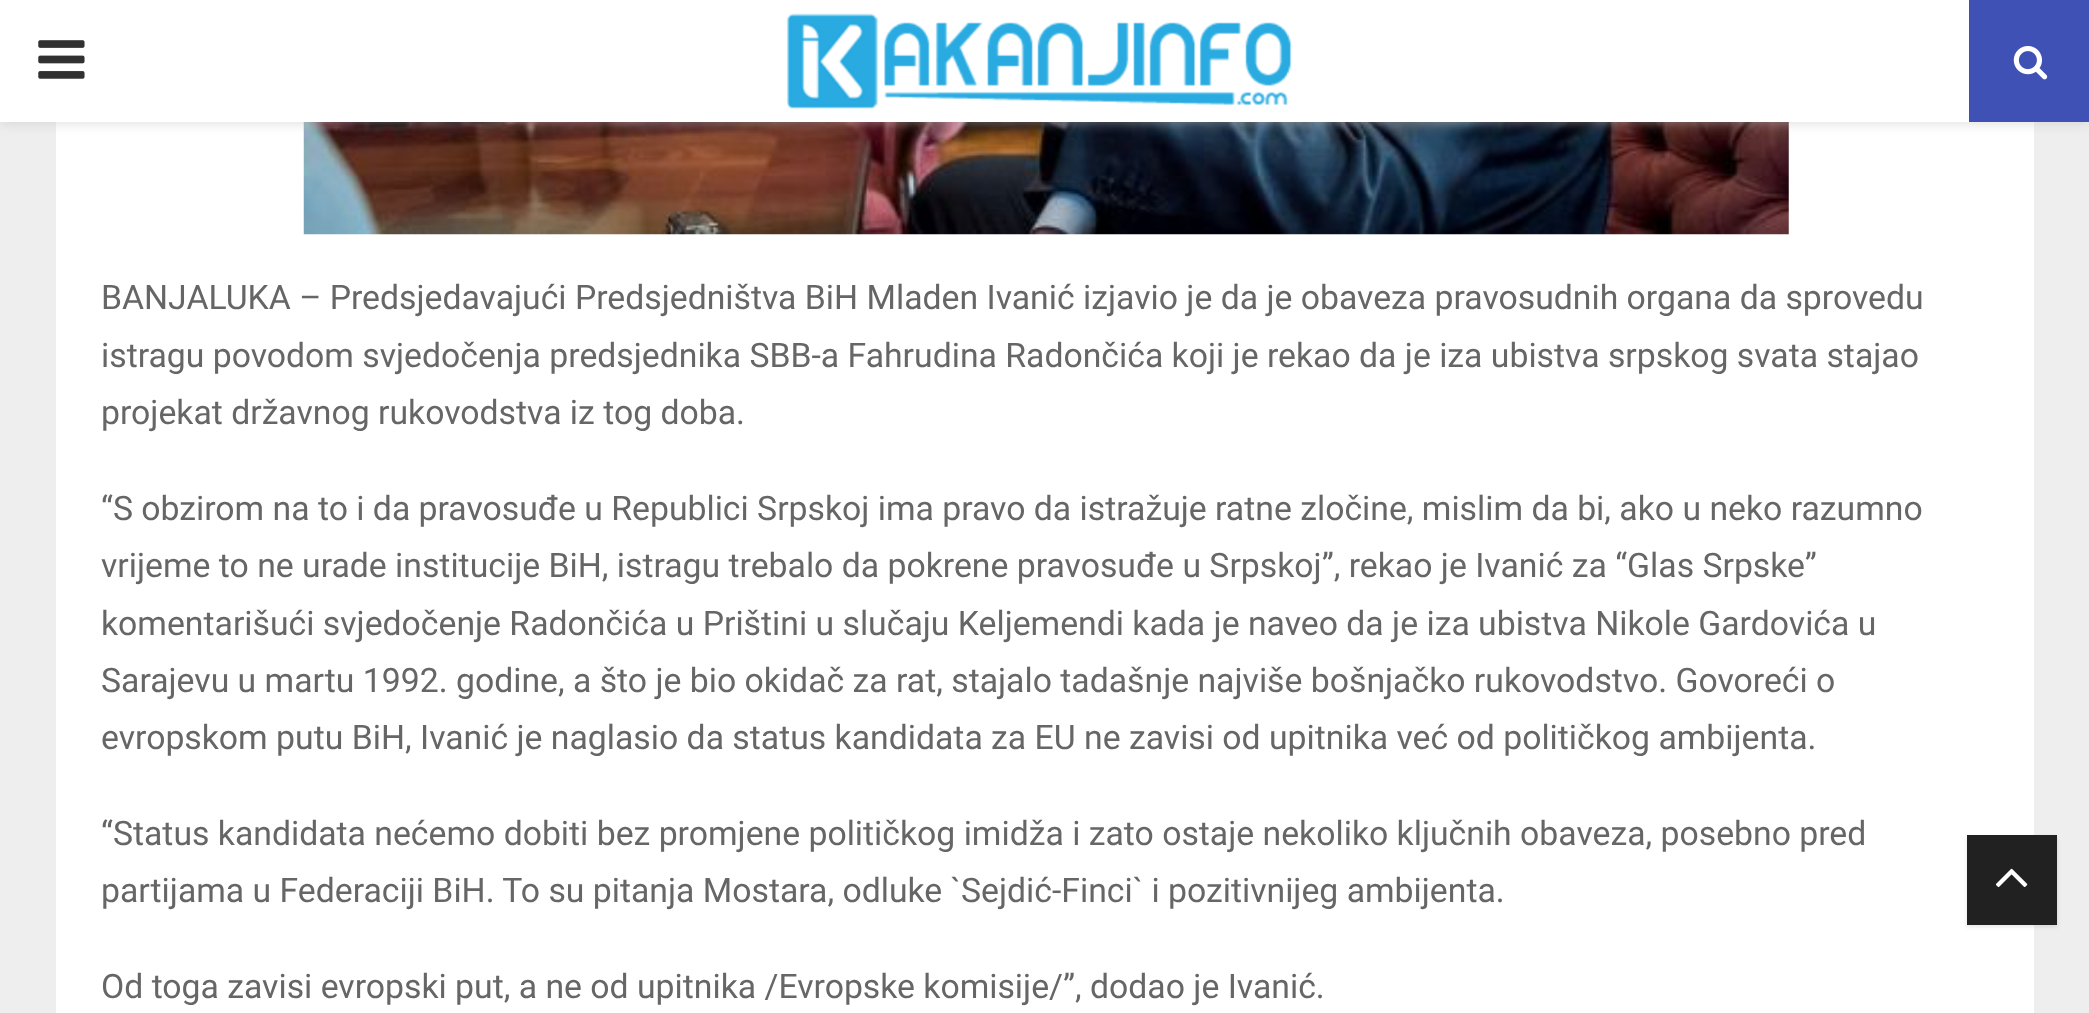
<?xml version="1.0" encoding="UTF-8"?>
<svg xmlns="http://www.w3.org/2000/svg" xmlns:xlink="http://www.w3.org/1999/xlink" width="2089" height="1013">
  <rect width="100%" height="100%" fill="#eeeeee" />
  <rect x="56" y="122" width="1978" height="891" fill="#ffffff" />
  <image x="303" y="122" width="1486" height="113" xlink:href="image4.png" />
  <rect y="2" width="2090" height="122" fill="#bebebe" fill-opacity="0.46" filter="blur(5.5px)" />
  <rect width="1969" height="122" fill="#ffffff" />
  <image x="38" y="40" width="47" height="39" xlink:href="image1.png" />
  <image x="786" y="13" width="506" height="97" xlink:href="image2.png" />
  <rect x="1969" width="120" height="122" fill="#3f51b5" />
  <image x="2013" y="46" width="35" height="34" xlink:href="image3.png" />
  <rect x="1967" y="837" width="90" height="90" fill="#000000" fill-opacity="0.1" filter="blur(2px)" />
  <rect x="1967" y="835" width="90" height="90" fill="#212121" />
  <image x="1995" y="868" width="33" height="19" xlink:href="image5.png" />
  <text x="101" y="309" style="font-family: Roboto; font-size: 33.75px; fill: #666666">BANJALUKA – Predsjedavajući Predsjedništva BiH Mladen Ivanić izjavio je da je obaveza pravosudnih organa da sprovedu</text>
  <text x="101" y="367" style="font-family: Roboto; font-size: 33.75px; fill: #666666">istragu povodom svjedočenja predsjednika SBB-a Fahrudina Radončića koji je rekao da je iza ubistva srpskog svata stajao</text>
  <text x="101" y="424" style="font-family: Roboto; font-size: 33.75px; fill: #666666">projekat državnog rukovodstva iz tog doba.</text>
  <text x="101" y="520" style="font-family: Roboto; font-size: 33.75px; fill: #666666">“S obzirom na to i da pravosuđe u Republici Srpskoj ima pravo da istražuje ratne zločine, mislim da bi, ako u neko razumno</text>
  <text x="101" y="577" style="font-family: Roboto; font-size: 33.75px; fill: #666666">vrijeme to ne urade institucije BiH, istragu trebalo da pokrene pravosuđe u Srpskoj”, rekao je Ivanić za “Glas Srpske”</text>
  <text x="101" y="635" style="font-family: Roboto; font-size: 33.75px; fill: #666666">komentarišući svjedočenje Radončića u Prištini u slučaju Keljemendi kada je naveo da je iza ubistva Nikole Gardovića u</text>
  <text x="101" y="692" style="font-family: Roboto; font-size: 33.75px; fill: #666666">Sarajevu u martu 1992. godine, a što je bio okidač za rat, stajalo tadašnje najviše bošnjačko rukovodstvo. Govoreći o</text>
  <text x="101" y="749" style="font-family: Roboto; font-size: 33.75px; fill: #666666">evropskom putu BiH, Ivanić je naglasio da status kandidata za EU ne zavisi od upitnika već od političkog ambijenta.</text>
  <text x="101" y="845" style="font-family: Roboto; font-size: 33.75px; fill: #666666">“Status kandidata nećemo dobiti bez promjene političkog imidža i zato ostaje nekoliko ključnih obaveza, posebno pred</text>
  <text x="101" y="902" style="font-family: Roboto; font-size: 33.75px; fill: #666666">partijama u Federaciji BiH. To su pitanja Mostara, odluke `Sejdić-Finci` i pozitivnijeg ambijenta.</text>
  <text x="101" y="998" style="font-family: Roboto; font-size: 33.75px; fill: #666666">Od toga zavisi evropski put, a ne od upitnika /Evropske komisije/”, dodao je Ivanić.</text>
</svg>
